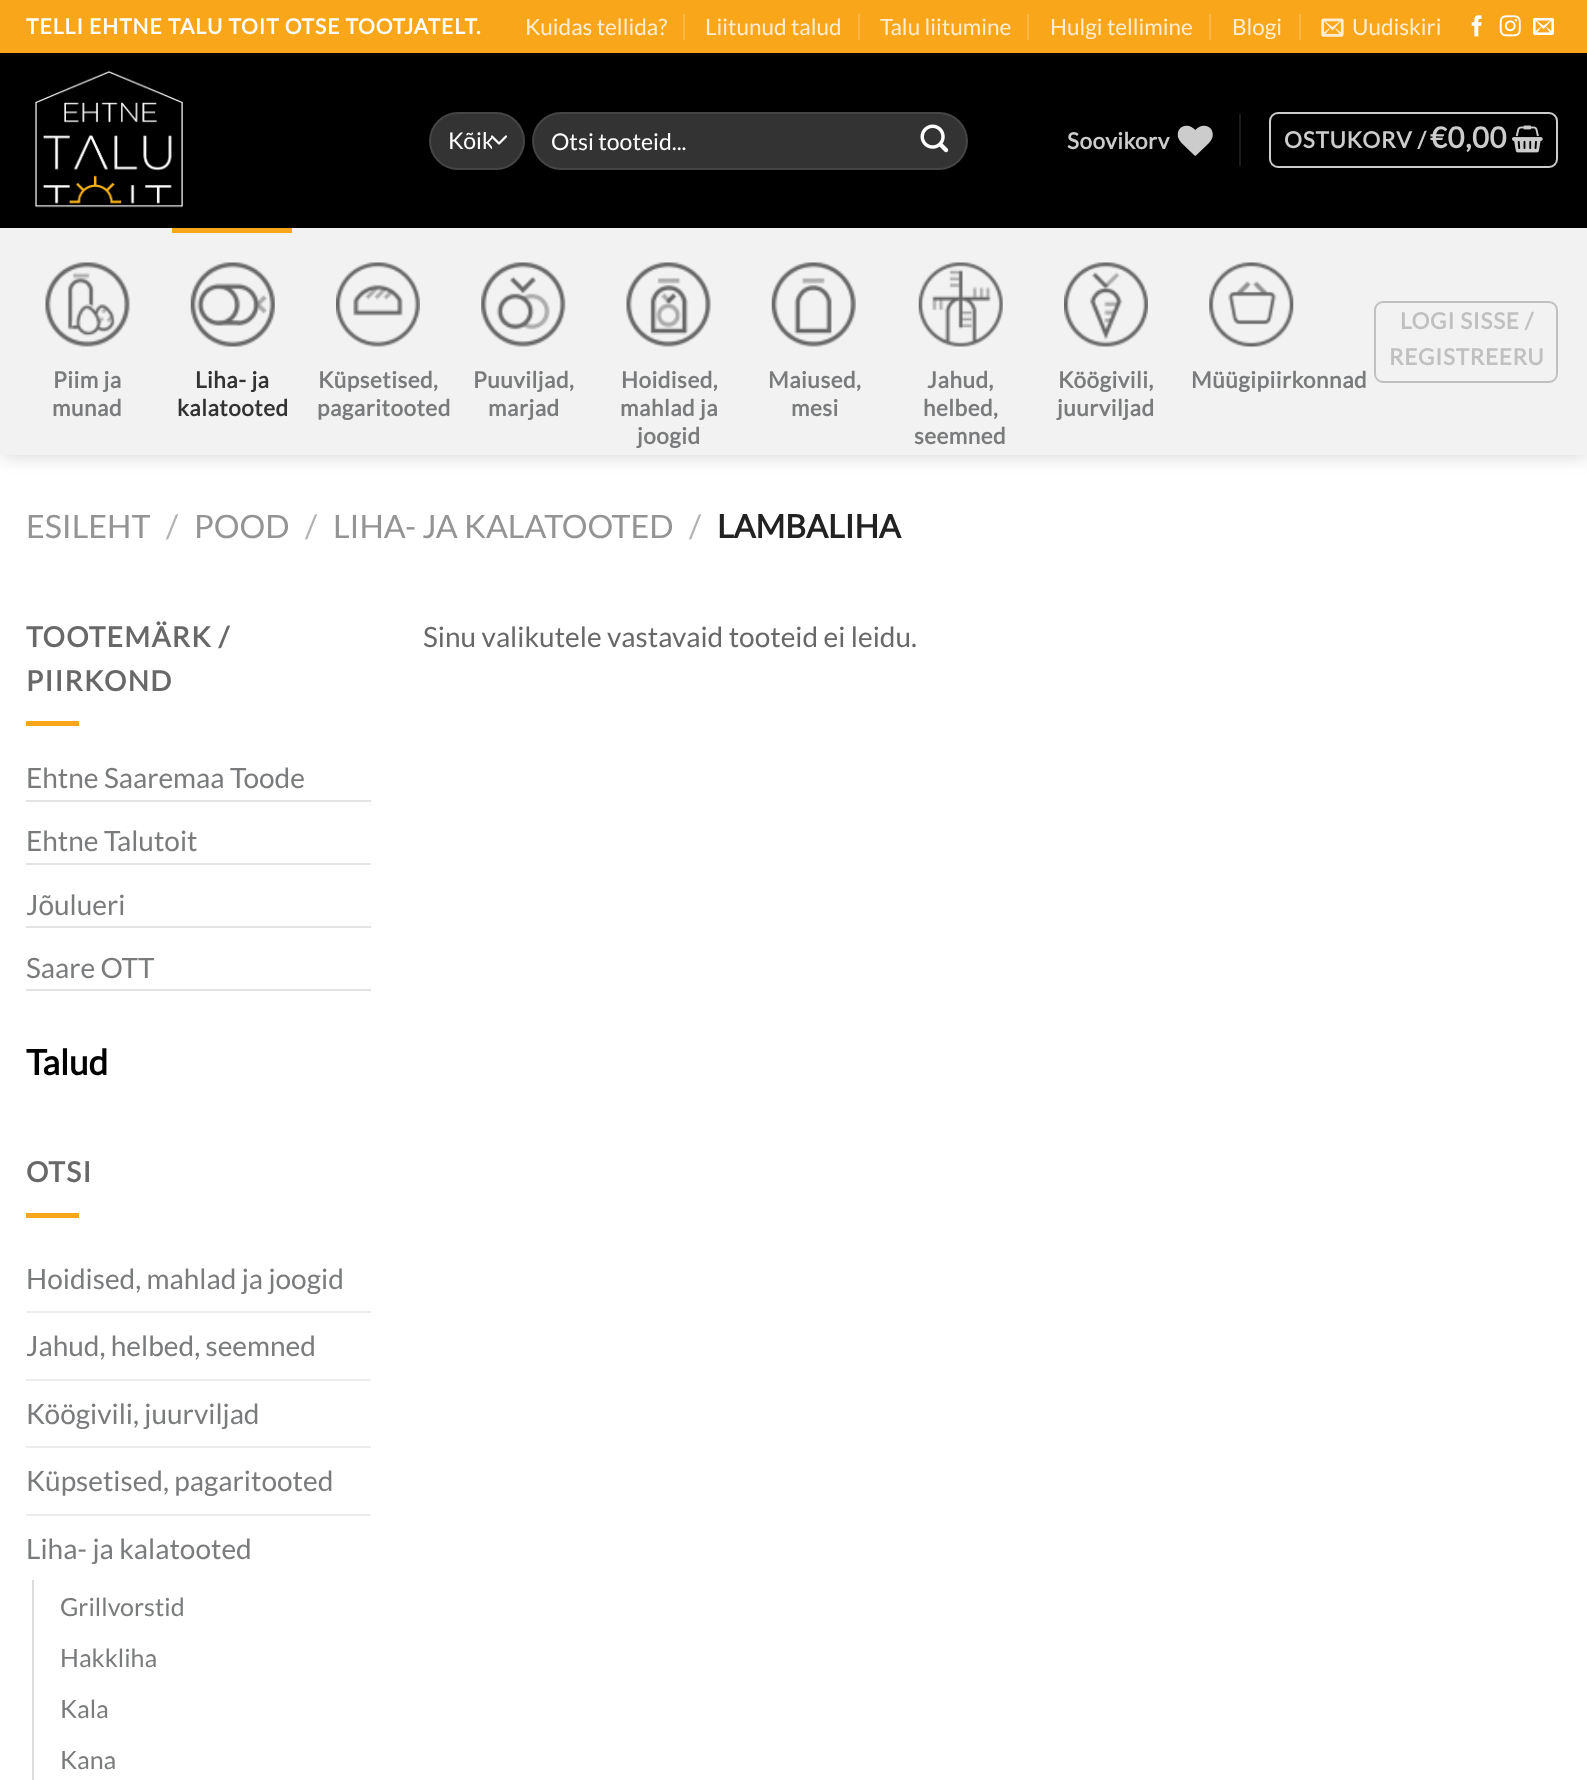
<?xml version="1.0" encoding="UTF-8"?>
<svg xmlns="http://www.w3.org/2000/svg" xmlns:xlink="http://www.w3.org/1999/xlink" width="1587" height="1780">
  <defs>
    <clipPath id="clip1"><rect x="448" y="123" width="44" height="36" /></clipPath>
  </defs>
  <rect width="100%" height="100%" fill="#ffffff" />
  <rect x="2" y="2" width="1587" height="455" fill="#000000" fill-opacity="0.15" filter="blur(9px)" />
  <rect y="53" width="1587" height="175" fill="#000000" />
  <rect width="1587" height="53" fill="#faa61a" />
  <rect x="683" y="14" width="2" height="26" fill="#fbb848" />
  <rect x="858" y="14" width="2" height="26" fill="#fbb848" />
  <rect x="1027" y="14" width="2" height="26" fill="#fbb848" />
  <rect x="1209" y="14" width="2" height="26" fill="#fbb848" />
  <rect x="1299" y="14" width="2" height="26" fill="#fbb848" />
  <image x="1321" y="18" width="23" height="19" xlink:href="image1.png" />
  <image x="1471" y="15" width="11" height="22" xlink:href="image2.png" />
  <image x="1499" y="15" width="22" height="22" xlink:href="image3.png" />
  <image x="1533" y="17" width="21" height="18" xlink:href="image4.png" />
  <image x="35" y="70" width="148" height="138" xlink:href="image5.png" />
  <rect x="429" y="112" width="96" height="58" rx="29" fill="#333333" />
  <path d="M 492 136.5 l 7 7 l 7 -7" fill="none" stroke="#ffffff" stroke-width="2.3" stroke-linecap="round" stroke-linejoin="round" />
  <rect x="430" y="113" width="94" height="56" rx="28" fill="none" stroke="#ffffff" stroke-opacity="0.09" stroke-width="2" />
  <rect x="532" y="112" width="436" height="58" rx="29" fill="#333333" />
  <rect x="533" y="113" width="434" height="56" rx="28" fill="none" stroke="#ffffff" stroke-opacity="0.09" stroke-width="2" />
  <image x="920" y="124" width="29" height="29" xlink:href="image6.png" />
  <image x="1177" y="125" width="36" height="31" xlink:href="image7.png" />
  <rect x="1239" y="114" width="2" height="52" fill="#1a1a1a" />
  <rect x="1270" y="113" width="287" height="54" rx="8" fill="none" stroke="#cccccc" stroke-width="2" />
  <image x="1512" y="125" width="31" height="28" xlink:href="image8.png" />
  <rect y="228" width="1587" height="227" fill="#f2f2f2" />
  <rect x="1375" y="302" width="182" height="80" rx="8" fill="none" stroke="#c0c0c0" stroke-width="2" />
  <image x="45" y="262" width="85" height="85" xlink:href="image9.png" />
  <rect x="172" y="228" width="120" height="5" fill="#faa61a" />
  <image x="190" y="262" width="85" height="85" xlink:href="image10.png" />
  <image x="336" y="262" width="84" height="85" xlink:href="image11.png" />
  <image x="481" y="262" width="85" height="85" xlink:href="image12.png" />
  <image x="626" y="262" width="85" height="85" xlink:href="image13.png" />
  <image x="771" y="262" width="85" height="85" xlink:href="image14.png" />
  <image x="918" y="262" width="85" height="85" xlink:href="image15.png" />
  <image x="1064" y="262" width="84" height="85" xlink:href="image16.png" />
  <image x="1209" y="262" width="85" height="85" xlink:href="image17.png" />
  <rect x="26" y="721" width="53" height="5" fill="#faa61a" />
  <rect x="26" y="800" width="345" height="2" fill="#e3e3e3" />
  <rect x="26" y="863" width="345" height="2" fill="#e3e3e3" />
  <rect x="26" y="926" width="345" height="2" fill="#e3e3e3" />
  <rect x="26" y="989" width="345" height="2" fill="#e3e3e3" />
  <rect x="26" y="1213" width="53" height="5" fill="#faa61a" />
  <rect x="26" y="1311" width="345" height="2" fill="#ececec" />
  <rect x="26" y="1379" width="345" height="2" fill="#ececec" />
  <rect x="26" y="1446" width="345" height="2" fill="#ececec" />
  <rect x="26" y="1514" width="345" height="2" fill="#ececec" />
  <rect x="32" y="1580" width="2" height="200" fill="#dddddd" />
  <text x="26" y="34" style="font-family: Lato; font-size: 21px; font-weight: bold; letter-spacing: 1.05px; fill: #ffffff">TELLI EHTNE TALU TOIT OTSE TOOTJATELT.</text>
  <text x="525" y="35" style="font-family: Lato; font-size: 22.5px; fill: #feedd1">Kuidas tellida?</text>
  <text x="705" y="35" style="font-family: Lato; font-size: 22.5px; fill: #feedd1">Liitunud talud</text>
  <text x="880" y="35" style="font-family: Lato; font-size: 22.5px; fill: #feedd1">Talu liitumine</text>
  <text x="1050" y="35" style="font-family: Lato; font-size: 22.5px; fill: #feedd1">Hulgi tellimine</text>
  <text x="1232" y="35" style="font-family: Lato; font-size: 22.5px; fill: #feedd1">Blogi</text>
  <text x="1352" y="35" style="font-family: Lato; font-size: 22.5px; fill: #feedd1">Uudiskiri</text>
  <g clip-path="url(#clip1)">
    <text x="448" y="149" style="font-family: Lato; font-size: 23px; fill: #ffffff">Kõik</text>
  </g>
  <text x="551" y="150" style="font-family: Lato; font-size: 23px; fill: #ffffff">Otsi tooteid...</text>
  <text x="1067" y="149" style="font-family: Lato; font-size: 22.5px; font-weight: bold; letter-spacing: 0.5px; fill: #cccccc">Soovikorv</text>
  <text x="1284" y="148" style="font-family: Lato; font-size: 22.5px; font-weight: bold; letter-spacing: 0.75px; fill: #cccccc">OSTUKORV /</text>
  <text x="1430" y="148" style="font-family: Lato; font-size: 29px; font-weight: bold; letter-spacing: 0.75px; fill: #cccccc">€0,00</text>
  <text x="1400" y="329" style="font-family: Lato; font-size: 22.5px; font-weight: bold; letter-spacing: 0.75px; fill: #c0c0c0">LOGI SISSE /</text>
  <text x="1389" y="365" style="font-family: Lato; font-size: 22.5px; font-weight: bold; letter-spacing: 0.75px; fill: #c0c0c0">REGISTREERU</text>
  <text x="53" y="388" style="font-family: Lato; font-size: 22.5px; font-weight: bold; letter-spacing: 0.5px; fill: #797b7c">Piim ja</text>
  <text x="52" y="416" style="font-family: Lato; font-size: 22.5px; font-weight: bold; letter-spacing: 0.5px; fill: #797b7c">munad</text>
  <text x="195" y="388" style="font-family: Lato; font-size: 22.5px; font-weight: bold; letter-spacing: 0.5px; fill: #333333">Liha- ja</text>
  <text x="177" y="416" style="font-family: Lato; font-size: 22.5px; font-weight: bold; letter-spacing: 0.5px; fill: #333333">kalatooted</text>
  <text x="318" y="388" style="font-family: Lato; font-size: 22.5px; font-weight: bold; letter-spacing: 0.5px; fill: #797b7c">Küpsetised,</text>
  <text x="317" y="416" style="font-family: Lato; font-size: 22.5px; font-weight: bold; letter-spacing: 0.5px; fill: #797b7c">pagaritooted</text>
  <text x="473" y="388" style="font-family: Lato; font-size: 22.5px; font-weight: bold; letter-spacing: 0.5px; fill: #797b7c">Puuviljad,</text>
  <text x="488" y="416" style="font-family: Lato; font-size: 22.5px; font-weight: bold; letter-spacing: 0.5px; fill: #797b7c">marjad</text>
  <text x="621" y="388" style="font-family: Lato; font-size: 22.5px; font-weight: bold; letter-spacing: 0.5px; fill: #797b7c">Hoidised,</text>
  <text x="620" y="416" style="font-family: Lato; font-size: 22.5px; font-weight: bold; letter-spacing: 0.5px; fill: #797b7c">mahlad ja</text>
  <text x="637" y="444" style="font-family: Lato; font-size: 22.5px; font-weight: bold; letter-spacing: 0.5px; fill: #797b7c">joogid</text>
  <text x="768" y="388" style="font-family: Lato; font-size: 22.5px; font-weight: bold; letter-spacing: 0.5px; fill: #797b7c">Maiused,</text>
  <text x="791" y="416" style="font-family: Lato; font-size: 22.5px; font-weight: bold; letter-spacing: 0.5px; fill: #797b7c">mesi</text>
  <text x="927" y="388" style="font-family: Lato; font-size: 22.5px; font-weight: bold; letter-spacing: 0.5px; fill: #797b7c">Jahud,</text>
  <text x="923" y="416" style="font-family: Lato; font-size: 22.5px; font-weight: bold; letter-spacing: 0.5px; fill: #797b7c">helbed,</text>
  <text x="914" y="444" style="font-family: Lato; font-size: 22.5px; font-weight: bold; letter-spacing: 0.5px; fill: #797b7c">seemned</text>
  <text x="1058" y="388" style="font-family: Lato; font-size: 22.5px; font-weight: bold; letter-spacing: 0.5px; fill: #797b7c">Köögivili,</text>
  <text x="1057" y="416" style="font-family: Lato; font-size: 22.5px; font-weight: bold; letter-spacing: 0.5px; fill: #797b7c">juurviljad</text>
  <text x="1191" y="388" style="font-family: Lato; font-size: 22.5px; font-weight: bold; letter-spacing: 0.5px; fill: #797b7c">Müügipiirkonnad</text>
  <text x="26" y="538" style="font-family: Lato; font-size: 32.25px; fill: #949494">ESILEHT</text>
  <text x="166" y="538" style="font-family: Lato; font-size: 32.25px; fill: #b2b2b2">/</text>
  <text x="194" y="538" style="font-family: Lato; font-size: 32.25px; fill: #949494">POOD</text>
  <text x="305" y="538" style="font-family: Lato; font-size: 32.25px; fill: #b2b2b2">/</text>
  <text x="333" y="538" style="font-family: Lato; font-size: 32.25px; fill: #949494">LIHA- JA KALATOOTED</text>
  <text x="689" y="538" style="font-family: Lato; font-size: 32.25px; fill: #b2b2b2">/</text>
  <text x="717" y="538" style="font-family: Lato; font-size: 32.25px; font-weight: bold; fill: #222222">LAMBALIHA</text>
  <text x="26" y="647" style="font-family: Lato; font-size: 28px; font-weight: bold; letter-spacing: 1.4px; fill: #686868">TOOTEMÄRK /</text>
  <text x="26" y="691" style="font-family: Lato; font-size: 28px; font-weight: bold; letter-spacing: 1.4px; fill: #686868">PIIRKOND</text>
  <text x="26" y="788" style="font-family: Lato; font-size: 28px; fill: #797b7c">Ehtne Saaremaa Toode</text>
  <text x="26" y="851" style="font-family: Lato; font-size: 28px; fill: #797b7c">Ehtne Talutoit</text>
  <text x="26" y="915" style="font-family: Lato; font-size: 28px; fill: #797b7c">Jõulueri</text>
  <text x="26" y="978" style="font-family: Lato; font-size: 28px; fill: #797b7c">Saare OTT</text>
  <text x="26" y="1075" style="font-family: Lato; font-size: 35px; font-weight: bold; fill: #000000">Talud</text>
  <text x="26" y="1182" style="font-family: Lato; font-size: 28px; font-weight: bold; letter-spacing: 1.4px; fill: #686868">OTSI</text>
  <text x="26" y="1289" style="font-family: Lato; font-size: 28px; fill: #797b7c">Hoidised, mahlad ja joogid</text>
  <text x="26" y="1356" style="font-family: Lato; font-size: 28px; fill: #797b7c">Jahud, helbed, seemned</text>
  <text x="26" y="1424" style="font-family: Lato; font-size: 28px; fill: #797b7c">Köögivili, juurviljad</text>
  <text x="26" y="1491" style="font-family: Lato; font-size: 28px; fill: #797b7c">Küpsetised, pagaritooted</text>
  <text x="26" y="1559" style="font-family: Lato; font-size: 28px; fill: #797b7c">Liha- ja kalatooted</text>
  <text x="60" y="1616" style="font-family: Lato; font-size: 25px; fill: #797b7c">Grillvorstid</text>
  <text x="60" y="1667" style="font-family: Lato; font-size: 25px; fill: #797b7c">Hakkliha</text>
  <text x="60" y="1718" style="font-family: Lato; font-size: 25px; fill: #797b7c">Kala</text>
  <text x="60" y="1769" style="font-family: Lato; font-size: 25px; fill: #797b7c">Kana</text>
  <text x="423" y="647" style="font-family: Lato; font-size: 28px; fill: #686868">Sinu valikutele vastavaid tooteid ei leidu.</text>
</svg>
